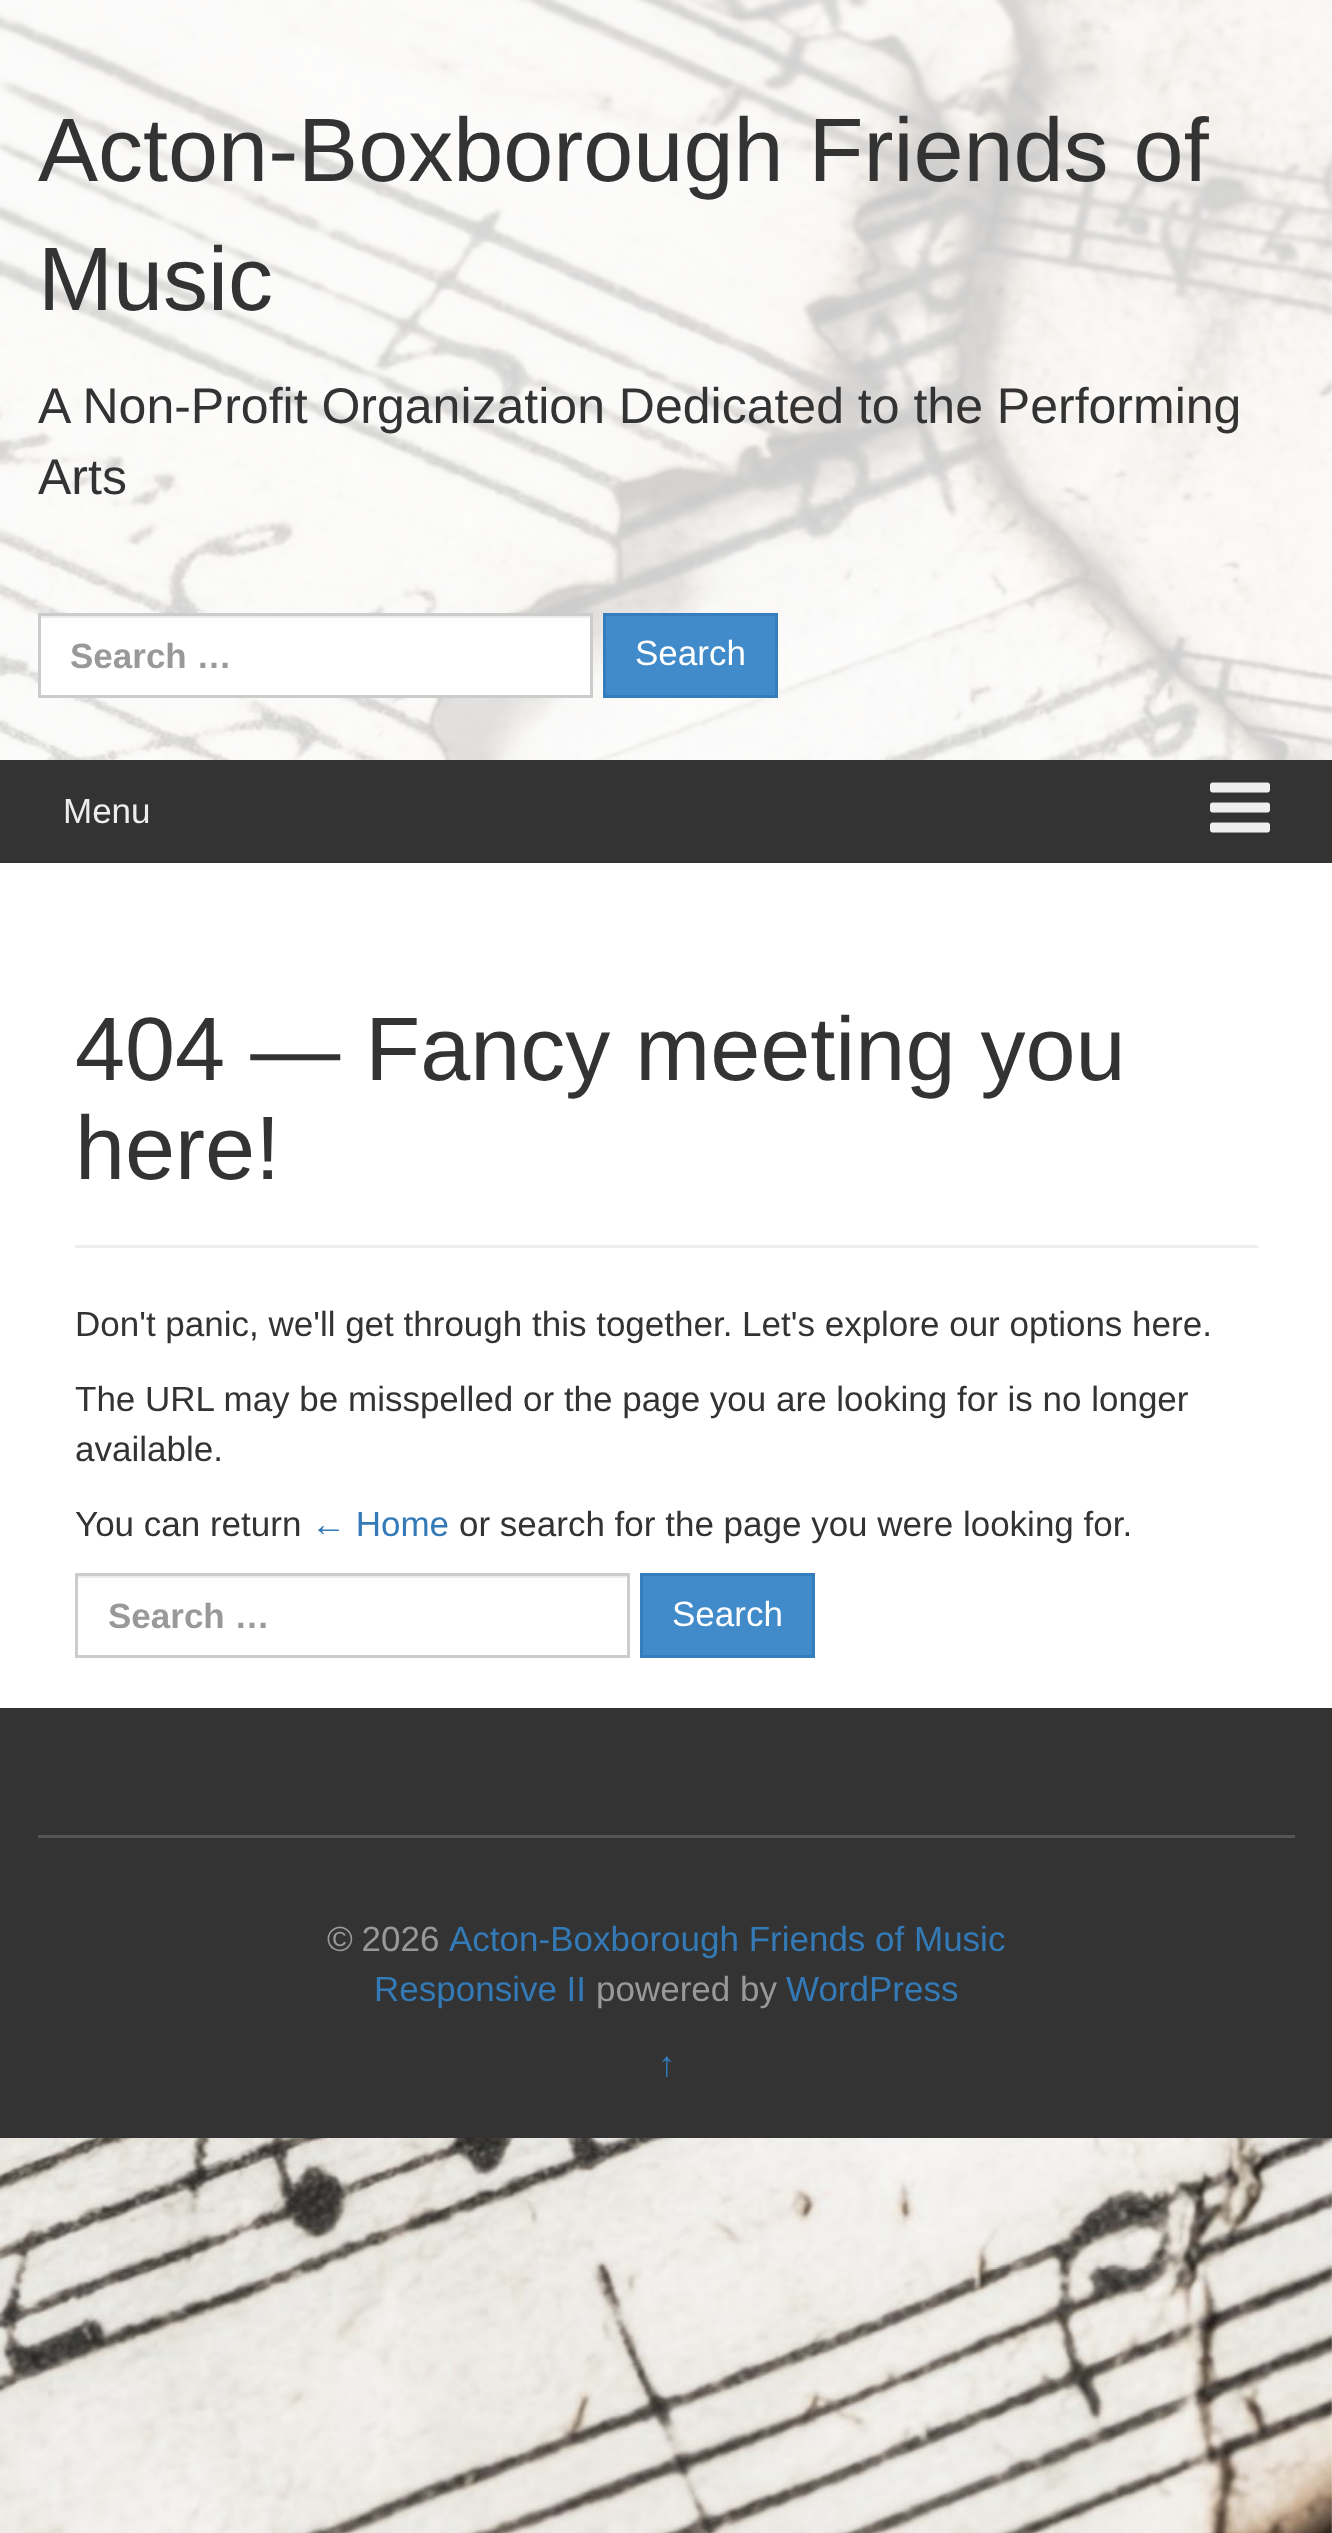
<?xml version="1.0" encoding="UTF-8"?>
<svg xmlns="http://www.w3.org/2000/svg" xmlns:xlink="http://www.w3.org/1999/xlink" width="1332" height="2533">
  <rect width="100%" height="100%" fill="#ffffff" />
  <image x="0" y="0" width="1332" height="2533" xlink:href="image1.png" />
  <rect width="1332" height="760" fill="#ffffff" fill-opacity="0.8" />
  <rect x="41" y="618" width="549" height="77" fill="#ffffff" />
  <rect x="40" y="616" width="550" height="2" fill="#ececec" />
  <rect x="39.5" y="614.5" width="552" height="82" fill="none" stroke="#cccccc" stroke-width="3" />
  <rect x="604.5" y="614.5" width="172" height="82" fill="#428bca" stroke="#357ebd" stroke-width="3" />
  <rect y="760" width="1332" height="103" fill="#333333" />
  <image x="1210" y="782" width="60" height="51" xlink:href="image2.png" />
  <rect y="863" width="1332" height="845" fill="#ffffff" />
  <rect x="75" y="1245" width="1183" height="3" fill="#eeeeee" />
  <rect x="78" y="1576" width="550" height="2" fill="#ececec" />
  <rect x="76.5" y="1574.5" width="552" height="82" fill="none" stroke="#cccccc" stroke-width="3" />
  <rect x="641.5" y="1574.5" width="172" height="82" fill="#428bca" stroke="#357ebd" stroke-width="3" />
  <rect y="1708" width="1332" height="430" fill="#333333" />
  <rect x="38" y="1835" width="1257" height="3" fill="#555555" />
  <text x="38" y="181" style="font-family: Liberation Sans; font-size: 90px; fill: #333333">Acton-Boxborough Friends of</text>
  <text x="38" y="310" style="font-family: Liberation Sans; font-size: 90px; fill: #333333">Music</text>
  <text x="38" y="423" style="font-family: Liberation Sans; font-size: 50px; fill: #333333">A Non-Profit Organization Dedicated to the Performing</text>
  <text x="38" y="494" style="font-family: Liberation Sans; font-size: 50px; fill: #333333">Arts</text>
  <text x="70" y="668" style="font-family: Liberation Sans; font-size: 35px; font-weight: bold; fill: #999999">Search …</text>
  <text x="635" y="665" style="font-family: Liberation Sans; font-size: 35px; fill: #ffffff">Search</text>
  <text x="63" y="823" style="font-family: Liberation Sans; font-size: 35px; fill: #eeeeee">Menu</text>
  <text x="75" y="1080" style="font-family: Liberation Sans; font-size: 90px; fill: #333333">404 — Fancy meeting you</text>
  <text x="75" y="1179" style="font-family: Liberation Sans; font-size: 90px; fill: #333333">here!</text>
  <text x="75" y="1336" style="font-family: Liberation Sans; font-size: 35px; fill: #333333">Don't panic, we'll get through this together. Let's explore our options here.</text>
  <text x="75" y="1411" style="font-family: Liberation Sans; font-size: 35px; fill: #333333">The URL may be misspelled or the page you are looking for is no longer</text>
  <text x="75" y="1461" style="font-family: Liberation Sans; font-size: 35px; fill: #333333">available.</text>
  <text x="75" y="1536" style="font-family: Liberation Sans; font-size: 35px; fill: #333333">You can return</text>
  <text x="311" y="1536" style="font-family: Liberation Sans; font-size: 35px; fill: #337ab7">← Home</text>
  <text x="459" y="1536" style="font-family: Liberation Sans; font-size: 35px; fill: #333333">or search for the page you were looking for.</text>
  <text x="108" y="1628" style="font-family: Liberation Sans; font-size: 35px; font-weight: bold; fill: #999999">Search …</text>
  <text x="672" y="1626" style="font-family: Liberation Sans; font-size: 35px; fill: #ffffff">Search</text>
  <text x="327" y="1951" word-spacing="-1" style="font-family: Liberation Sans; font-size: 35px; fill: #999999">© 2026</text>
  <text x="449" y="1951" style="font-family: Liberation Sans; font-size: 35px; fill: #337ab7">Acton-Boxborough Friends of Music</text>
  <text x="374" y="2001" style="font-family: Liberation Sans; font-size: 35px; fill: #337ab7">Responsive II</text>
  <text x="596" y="2001" style="font-family: Liberation Sans; font-size: 35px; fill: #999999">powered by</text>
  <text x="786" y="2001" style="font-family: Liberation Sans; font-size: 35px; fill: #337ab7">WordPress</text>
  <text x="658" y="2076" style="font-family: Liberation Sans; font-size: 35px; fill: #337ab7">↑</text>
</svg>
